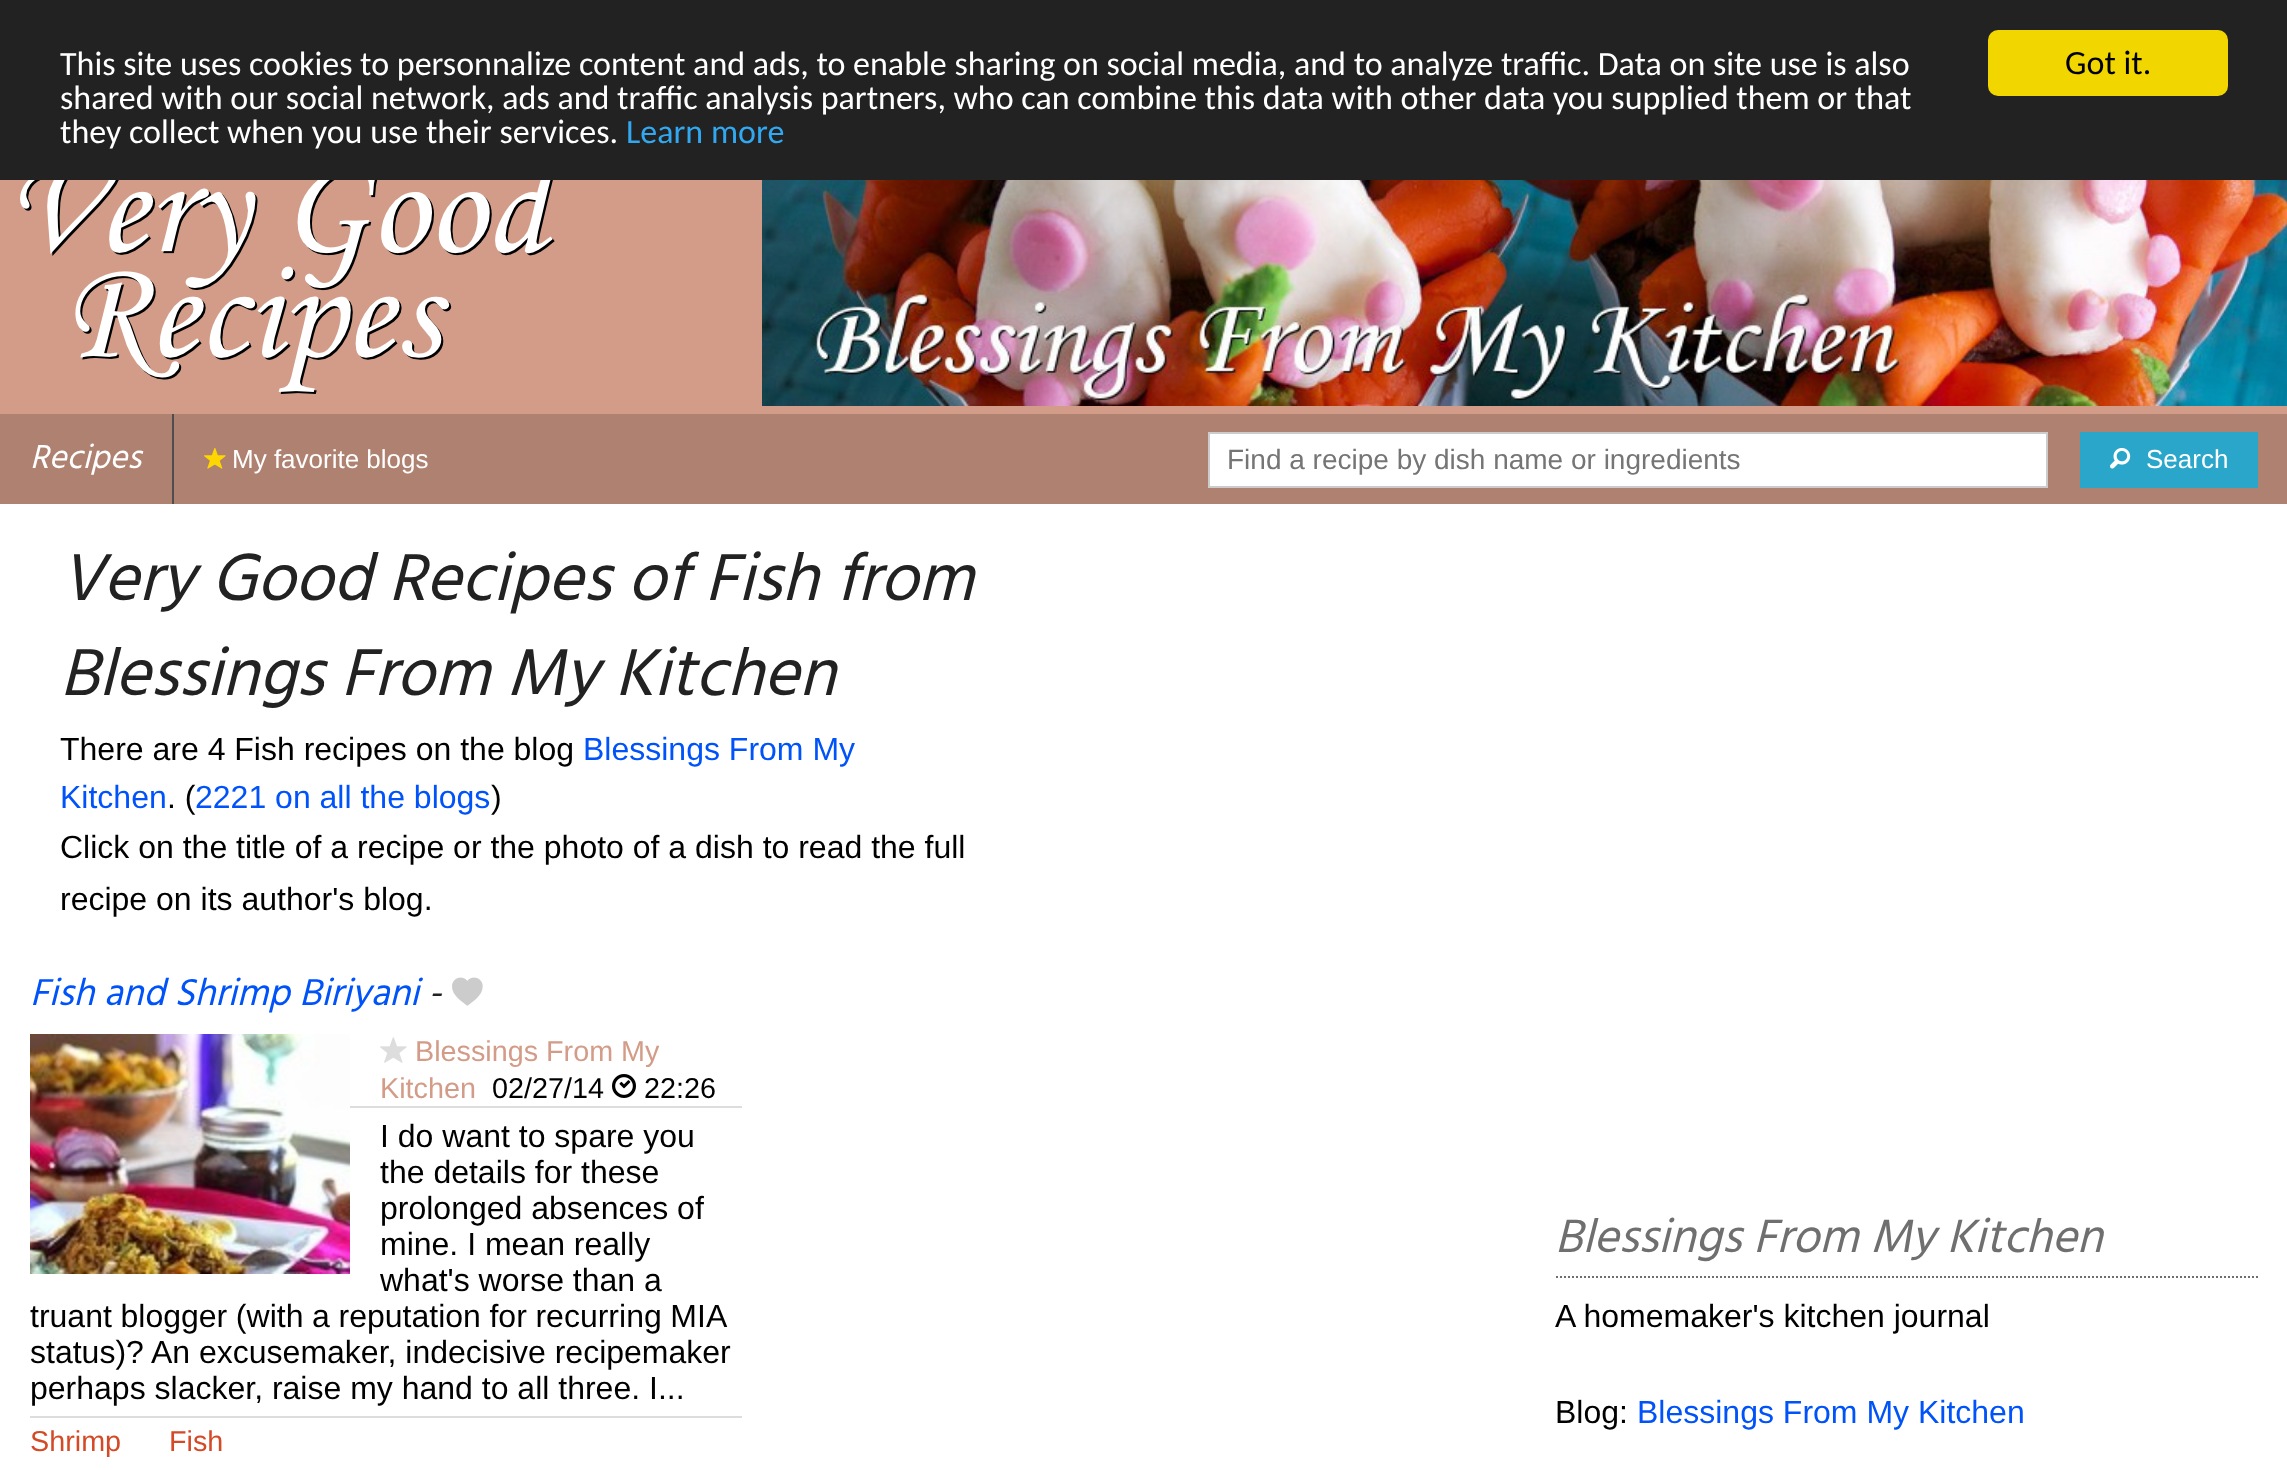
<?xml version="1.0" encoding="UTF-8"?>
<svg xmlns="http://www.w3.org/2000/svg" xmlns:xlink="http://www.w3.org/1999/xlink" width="2287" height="1470">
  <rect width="100%" height="100%" fill="#ffffff" />
  <rect width="2287" height="180" fill="#222222" />
  <rect x="1988" y="30" width="240" height="66" rx="10" fill="#f1d600" />
  <rect y="180" width="2287" height="234" fill="#d39c88" />
  <image x="20" y="180" width="535" height="214" xlink:href="image1.png" />
  <image x="762" y="180" width="1525" height="226" xlink:href="image2.png" />
  <rect y="414" width="2287" height="90" fill="#af8170" />
  <rect x="172" y="414" width="2" height="90" fill="#4e4e4e" />
  <image x="204" y="447" width="22" height="22" xlink:href="image3.png" />
  <rect x="1209" y="433" width="838" height="54" fill="#ffffff" stroke="#cccccc" stroke-width="2" />
  <rect x="2080" y="432" width="178" height="56" fill="#2ba6cb" />
  <image x="2110" y="447" width="21" height="22" xlink:href="image4.png" />
  <image x="452" y="977" width="31" height="29" xlink:href="image5.png" />
  <image x="30" y="1034" width="320" height="240" xlink:href="image6.png" />
  <rect x="350" y="1106" width="392" height="2" fill="#dddddd" />
  <image x="380" y="1037" width="27" height="26" xlink:href="image7.png" />
  <image x="612" y="1074" width="24" height="24" xlink:href="image8.png" />
  <rect x="30" y="1416" width="712" height="2" fill="#dddddd" />
  <path d="M 1556 1277 h 702" fill="none" stroke="#6f6f6f" stroke-width="2" stroke-dasharray="2 2" />
  <text x="60" y="75" style="font-family: Carlito; font-size: 34px; fill: #ffffff">This site uses cookies to personnalize content and ads, to enable sharing on social media, and to analyze traffic. Data on site use is also</text>
  <text x="60" y="109" style="font-family: Carlito; font-size: 34px; fill: #ffffff">shared with our social network, ads and traffic analysis partners, who can combine this data with other data you supplied them or that</text>
  <text x="60" y="143" style="font-family: Carlito; font-size: 34px; fill: #ffffff">they collect when you use their services.</text>
  <text x="626" y="143" style="font-family: Carlito; font-size: 34px; fill: #31a8f0">Learn more</text>
  <text x="2065" y="74" style="font-family: Carlito; font-size: 34px; fill: #000000">Got it.</text>
  <text x="30" y="468" style="font-family: Hind; font-size: 34px; font-style: italic; fill: #ffffff">Recipes</text>
  <text x="232" y="468" style="font-family: Liberation Sans; font-size: 26px; fill: #ffffff">My favorite blogs</text>
  <text x="1227" y="469" style="font-family: Liberation Sans; font-size: 28px; fill: #757575">Find a recipe by dish name or ingredients</text>
  <text x="2146" y="468" style="font-family: Liberation Sans; font-size: 26px; fill: #ffffff">Search</text>
  <text x="60" y="600" style="font-family: Hind; font-size: 68px; font-style: italic; fill: #222222">Very Good Recipes of Fish from</text>
  <text x="60" y="695" style="font-family: Hind; font-size: 68px; font-style: italic; fill: #222222">Blessings From My Kitchen</text>
  <text x="60" y="760" style="font-family: Liberation Sans; font-size: 32px; fill: #000000">There are 4 Fish recipes on the blog</text>
  <text x="583" y="760" style="font-family: Liberation Sans; font-size: 32px; fill: #0053f9">Blessings From My</text>
  <text x="60" y="808" style="font-family: Liberation Sans; font-size: 32px; fill: #0053f9">Kitchen</text>
  <text x="167" y="808" style="font-family: Liberation Sans; font-size: 32px; fill: #000000">. (</text>
  <text x="195" y="808" style="font-family: Liberation Sans; font-size: 32px; fill: #0053f9">2221 on all the blogs</text>
  <text x="491" y="808" style="font-family: Liberation Sans; font-size: 32px; fill: #000000">)</text>
  <text x="60" y="858" style="font-family: Liberation Sans; font-size: 32px; fill: #000000">Click on the title of a recipe or the photo of a dish to read the full</text>
  <text x="60" y="910" style="font-family: Liberation Sans; font-size: 32px; fill: #000000">recipe on its author's blog.</text>
  <text x="30" y="1005" style="font-family: Hind; font-size: 38.4px; font-style: italic; fill: #0053f9">Fish and Shrimp Biriyani</text>
  <text x="428" y="1005" style="font-family: Hind; font-size: 38.4px; font-style: italic; fill: #222222">-</text>
  <text x="415" y="1061" style="font-family: Liberation Sans; font-size: 28.75px; fill: #d39c88">Blessings From My</text>
  <text x="380" y="1098" style="font-family: Liberation Sans; font-size: 28.75px; fill: #d39c88">Kitchen</text>
  <text x="492" y="1098" style="font-family: Liberation Sans; font-size: 28.75px; fill: #000000">02/27/14</text>
  <text x="644" y="1098" style="font-family: Liberation Sans; font-size: 28.75px; fill: #000000">22:26</text>
  <text x="380" y="1147" style="font-family: Liberation Sans; font-size: 32px; fill: #000000">I do want to spare you</text>
  <text x="380" y="1183" style="font-family: Liberation Sans; font-size: 32px; fill: #000000">the details for these</text>
  <text x="380" y="1219" style="font-family: Liberation Sans; font-size: 32px; fill: #000000">prolonged absences of</text>
  <text x="380" y="1255" style="font-family: Liberation Sans; font-size: 32px; fill: #000000">mine. I mean really</text>
  <text x="380" y="1291" style="font-family: Liberation Sans; font-size: 32px; fill: #000000">what's worse than a</text>
  <text x="30" y="1327" word-spacing="-0.25" style="font-family: Liberation Sans; font-size: 32px; fill: #000000">truant blogger (with a reputation for recurring MIA</text>
  <text x="30" y="1363" style="font-family: Liberation Sans; font-size: 32px; fill: #000000">status)? An excusemaker, indecisive recipemaker</text>
  <text x="30" y="1399" style="font-family: Liberation Sans; font-size: 32px; fill: #000000">perhaps slacker, raise my hand to all three. I...</text>
  <text x="30" y="1451" style="font-family: Liberation Sans; font-size: 28.75px; fill: #d34a27">Shrimp</text>
  <text x="169" y="1451" style="font-family: Liberation Sans; font-size: 28.75px; fill: #d34a27">Fish</text>
  <text x="1555" y="1252" style="font-family: Hind; font-size: 48px; font-style: italic; fill: #6f6f6f">Blessings From My Kitchen</text>
  <text x="1555" y="1327" style="font-family: Liberation Sans; font-size: 32px; fill: #000000">A homemaker's kitchen journal</text>
  <text x="1555" y="1423" style="font-family: Liberation Sans; font-size: 32px; fill: #000000">Blog:</text>
  <text x="1637" y="1423" style="font-family: Liberation Sans; font-size: 32px; fill: #0053f9">Blessings From My Kitchen</text>
</svg>
